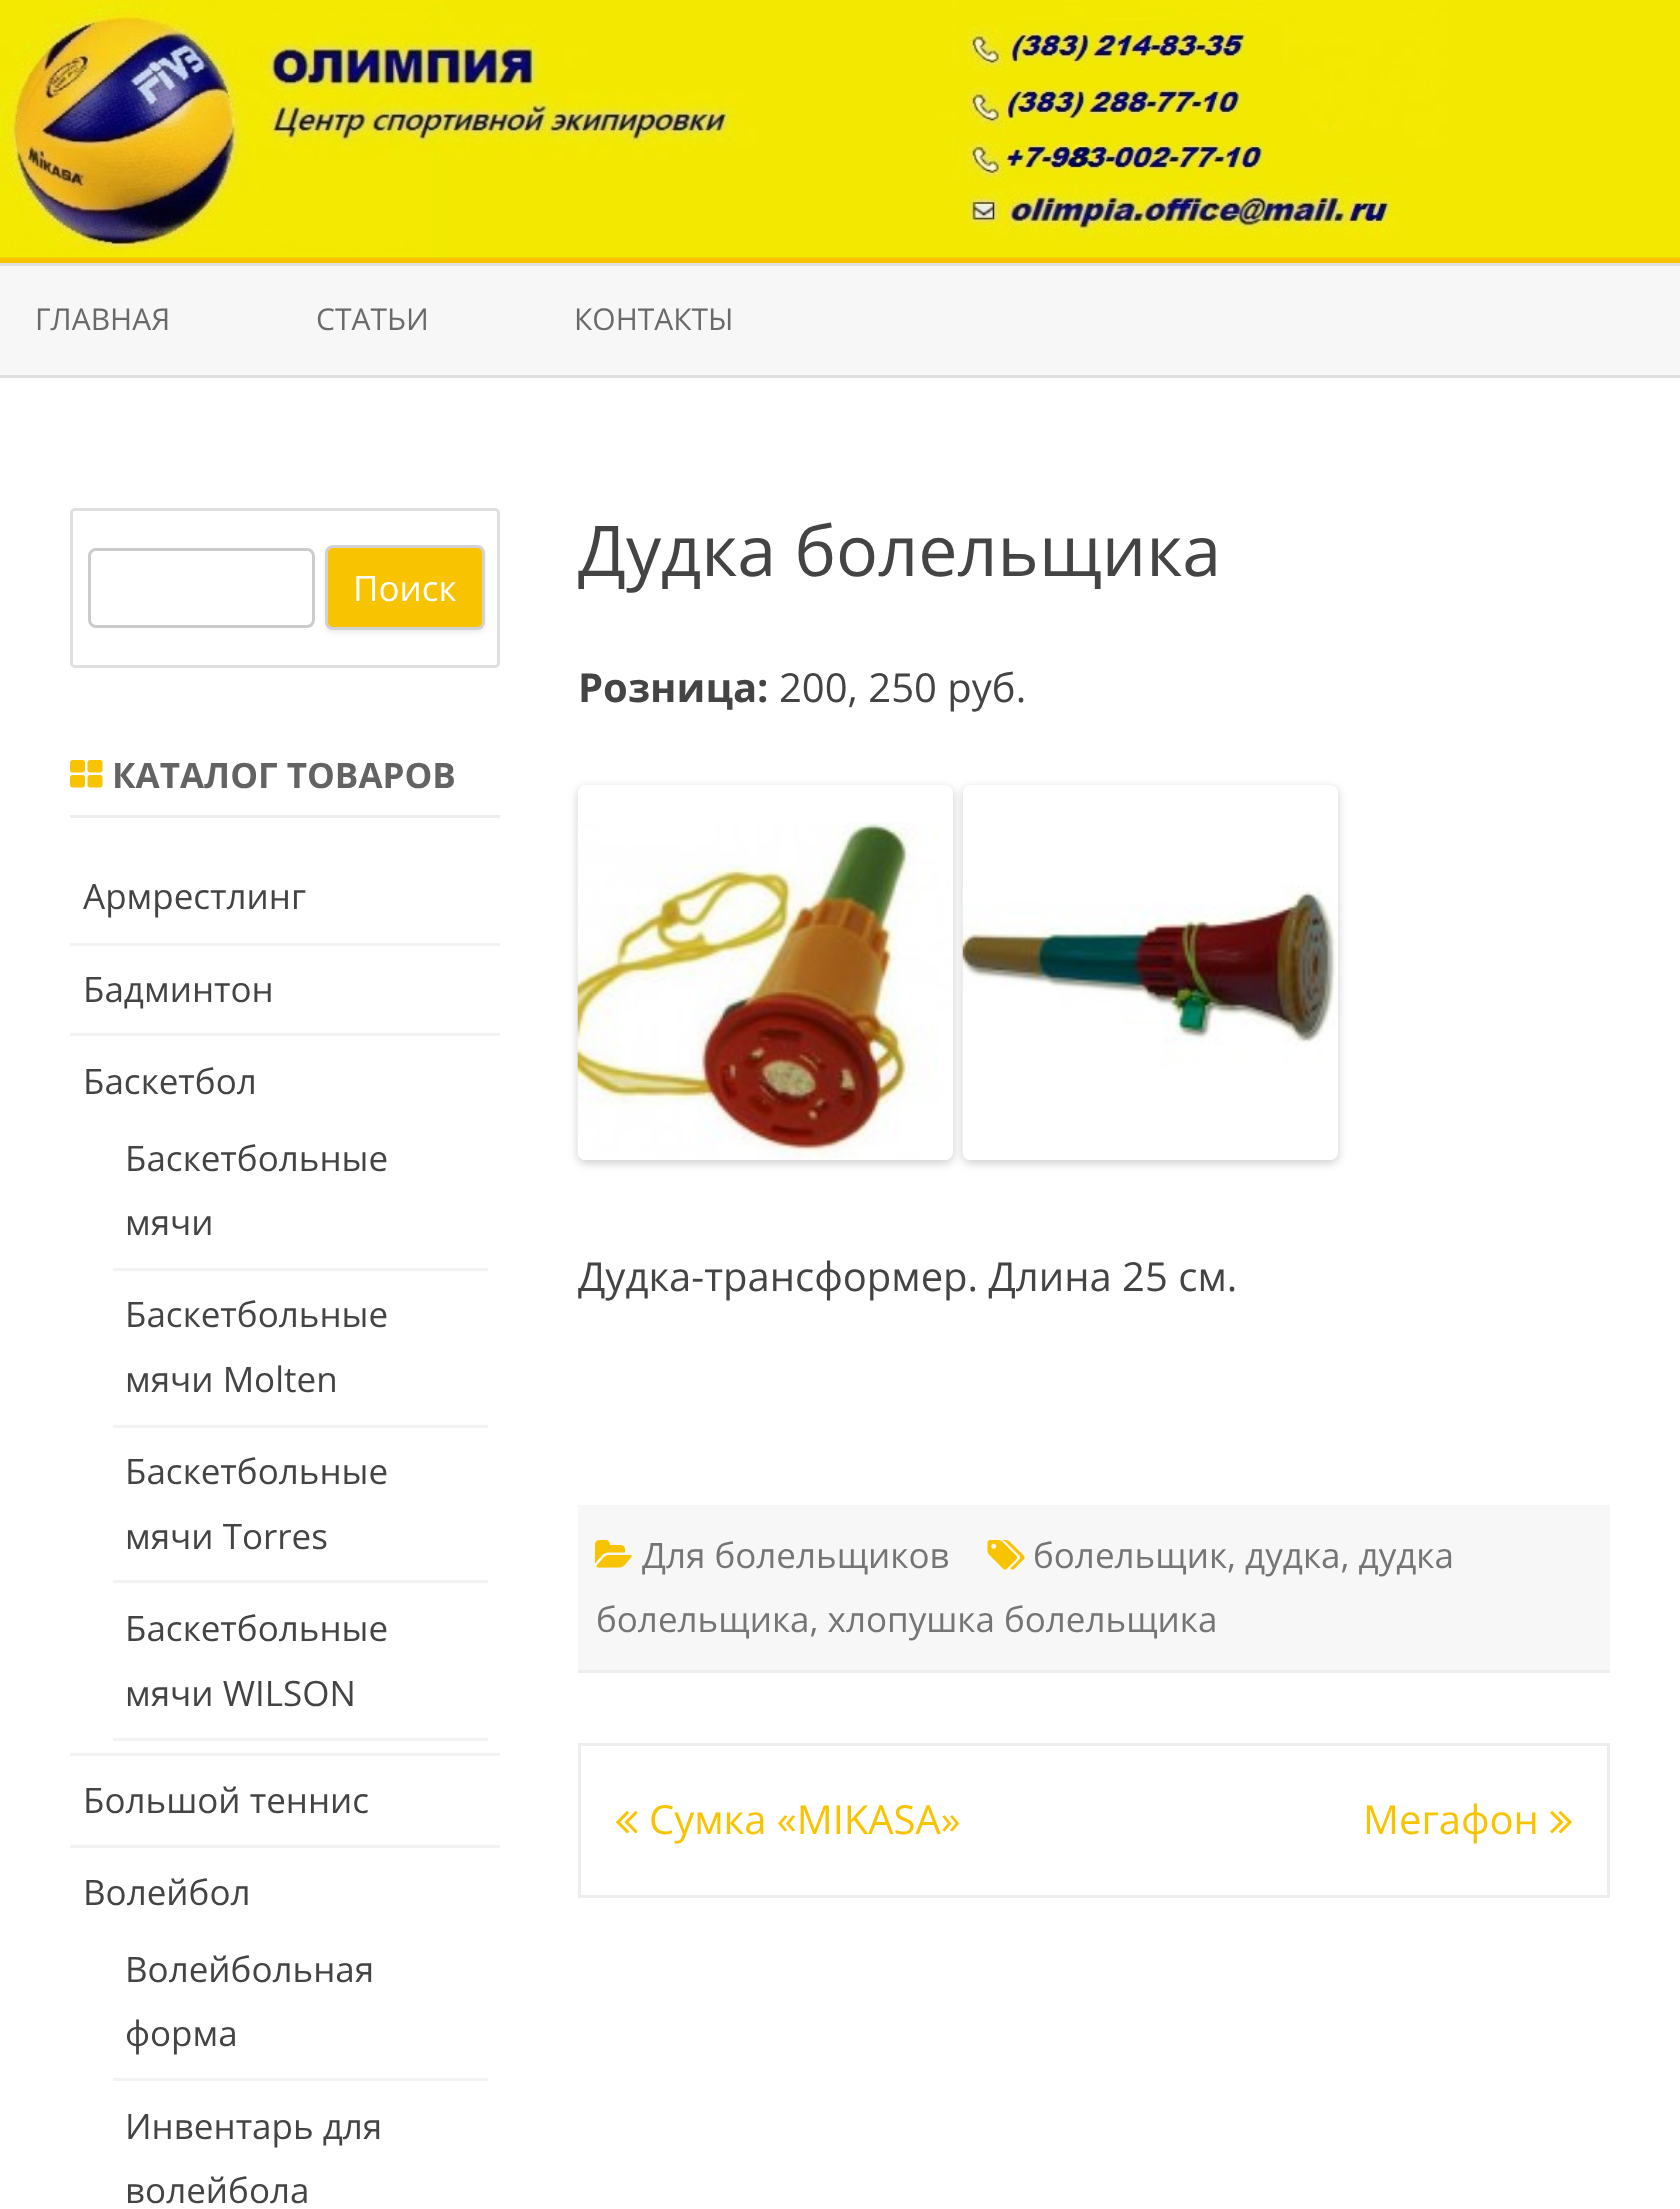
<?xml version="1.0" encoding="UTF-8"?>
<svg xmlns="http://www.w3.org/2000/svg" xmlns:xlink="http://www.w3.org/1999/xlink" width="1680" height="2209">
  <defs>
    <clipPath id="clip1"><path d="M 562 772 h 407 v 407 h -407 z m 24 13 h 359 c 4.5 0 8 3.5 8 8 v 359 c 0 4.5 -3.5 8 -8 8 h -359 c -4.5 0 -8 -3.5 -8 -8 v -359 c 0 -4.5 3.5 -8 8 -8 z" clip-rule="evenodd" /></clipPath>
    <clipPath id="clip2"><path d="M 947 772 h 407 v 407 h -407 z m 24 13 h 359 c 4.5 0 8 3.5 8 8 v 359 c 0 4.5 -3.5 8 -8 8 h -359 c -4.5 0 -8 -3.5 -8 -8 v -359 c 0 -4.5 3.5 -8 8 -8 z" clip-rule="evenodd" /></clipPath>
  </defs>
  <rect width="100%" height="100%" fill="#ffffff" />
  <rect y="257" width="1680" height="6" fill="#f8c300" />
  <image x="0" y="0" width="1680" height="258" xlink:href="image1.png" />
  <rect y="266" width="1680" height="109" fill="#f7f7f7" />
  <rect y="263" width="1680" height="3" fill="#e0e0e0" />
  <rect y="375" width="1680" height="3" fill="#e0e0e0" />
  <rect x="71.5" y="509.5" width="427" height="157" rx="3.5" fill="none" stroke="#e0e0e0" stroke-width="3" />
  <rect x="89.5" y="549.5" width="224" height="77" rx="6.5" fill="none" stroke="#cccccc" stroke-width="3" />
  <rect x="325" y="548" width="160" height="85" rx="8" fill="#404040" fill-opacity="0.1" filter="blur(2.5px)" />
  <rect x="326.5" y="546.5" width="157" height="82" rx="6.5" fill="#f8c300" stroke="#d2d2d2" stroke-width="3" />
  <rect x="70" y="815" width="430" height="3" fill="#ededed" />
  <image x="70" y="760" width="33" height="28" xlink:href="image2.png" />
  <rect x="70" y="943" width="430" height="3" fill="#f2f2f2" />
  <rect x="70" y="1033" width="430" height="3" fill="#f2f2f2" />
  <rect x="70" y="1753" width="430" height="3" fill="#f2f2f2" />
  <rect x="113" y="1268" width="375" height="3" fill="#f2f2f2" />
  <rect x="113" y="1425" width="375" height="3" fill="#f2f2f2" />
  <rect x="113" y="1580" width="375" height="3" fill="#f2f2f2" />
  <rect x="113" y="1738" width="375" height="3" fill="#f2f2f2" />
  <rect x="70" y="1845" width="430" height="3" fill="#f2f2f2" />
  <rect x="113" y="2078" width="375" height="3" fill="#f2f2f2" />
  <rect x="578" y="1670" width="1032" height="3" fill="#ededed" />
  <g clip-path="url(#clip1)">
    <rect x="578" y="788" width="375" height="375" rx="8" fill="#000000" fill-opacity="0.2" filter="blur(5px)" />
  </g>
  <image x="577" y="822" width="374" height="338" xlink:href="image3.png" />
  <g clip-path="url(#clip2)">
    <rect x="963" y="788" width="375" height="375" rx="8" fill="#000000" fill-opacity="0.2" filter="blur(5px)" />
  </g>
  <image x="962" y="885" width="375" height="275" xlink:href="image4.png" />
  <rect x="578" y="1505" width="1032" height="165" fill="#f7f7f7" />
  <image x="595" y="1540" width="37" height="28" xlink:href="image5.png" />
  <image x="987" y="1540" width="38" height="30" xlink:href="image6.png" />
  <rect x="579.5" y="1744.5" width="1029" height="152" fill="none" stroke="#ededed" stroke-width="3" />
  <image x="616" y="1811" width="22" height="23" xlink:href="image7.png" />
  <image x="1550" y="1811" width="22" height="23" xlink:href="image8.png" />
  <text x="35" y="330" style="font-family: Open Sans; font-size: 30px; fill: #6a6a6a">ГЛАВНАЯ</text>
  <text x="316" y="330" style="font-family: Open Sans; font-size: 30px; fill: #6a6a6a">СТАТЬИ</text>
  <text x="574" y="330" style="font-family: Open Sans; font-size: 30px; fill: #6a6a6a">КОНТАКТЫ</text>
  <text x="353" y="601" style="font-family: Open Sans; font-size: 35px; fill: #ffffff">Поиск</text>
  <text x="112" y="788" style="font-family: Open Sans; font-size: 35px; font-weight: bold; fill: #636363">КАТАЛОГ ТОВАРОВ</text>
  <text x="83" y="909" style="font-family: Open Sans; font-size: 35px; fill: #444444">Армрестлинг</text>
  <text x="83" y="1002" style="font-family: Open Sans; font-size: 35px; fill: #444444">Бадминтон</text>
  <text x="83" y="1094" style="font-family: Open Sans; font-size: 35px; fill: #444444">Баскетбол</text>
  <text x="125" y="1171" style="font-family: Open Sans; font-size: 35px; fill: #444444">Баскетбольные</text>
  <text x="125" y="1235" style="font-family: Open Sans; font-size: 35px; fill: #444444">мячи</text>
  <text x="125" y="1327" style="font-family: Open Sans; font-size: 35px; fill: #444444">Баскетбольные</text>
  <text x="125" y="1392" style="font-family: Open Sans; font-size: 35px; fill: #444444">мячи Molten</text>
  <text x="125" y="1484" style="font-family: Open Sans; font-size: 35px; fill: #444444">Баскетбольные</text>
  <text x="125" y="1549" style="font-family: Open Sans; font-size: 35px; fill: #444444">мячи Torres</text>
  <text x="125" y="1641" style="font-family: Open Sans; font-size: 35px; fill: #444444">Баскетбольные</text>
  <text x="125" y="1706" style="font-family: Open Sans; font-size: 35px; fill: #444444">мячи WILSON</text>
  <text x="83" y="1813" style="font-family: Open Sans; font-size: 35px; fill: #444444">Большой теннис</text>
  <text x="83" y="1905" style="font-family: Open Sans; font-size: 35px; fill: #444444">Волейбол</text>
  <text x="125" y="1982" style="font-family: Open Sans; font-size: 35px; fill: #444444">Волейбольная</text>
  <text x="125" y="2046" style="font-family: Open Sans; font-size: 35px; fill: #444444">форма</text>
  <text x="125" y="2139" style="font-family: Open Sans; font-size: 35px; fill: #444444">Инвентарь для</text>
  <text x="125" y="2203" style="font-family: Open Sans; font-size: 35px; fill: #444444">волейбола</text>
  <text x="578" y="576" style="font-family: Open Sans; font-size: 70px; fill: #444444">Дудка болельщика</text>
  <text x="578" y="702" style="font-family: Open Sans; font-size: 40px; font-weight: bold; fill: #444444">Розница:</text>
  <text x="779" y="702" style="font-family: Open Sans; font-size: 40px; fill: #444444">200, 250 руб.</text>
  <text x="578" y="1291" style="font-family: Open Sans; font-size: 40px; fill: #444444">Дудка-трансформер. Длина 25 см.</text>
  <text x="642" y="1568" style="font-family: Open Sans; font-size: 35px; fill: #757575">Для болельщиков</text>
  <text x="1033" y="1568" style="font-family: Open Sans; font-size: 35px; fill: #757575">болельщик, дудка, дудка</text>
  <text x="596" y="1632" style="font-family: Open Sans; font-size: 35px; fill: #757575">болельщика, хлопушка болельщика</text>
  <text x="649" y="1834" style="font-family: Open Sans; font-size: 40px; fill: #f8c300">Сумка «MIKASA»</text>
  <text x="1363" y="1834" style="font-family: Open Sans; font-size: 40px; fill: #f8c300">Мегафон</text>
</svg>
